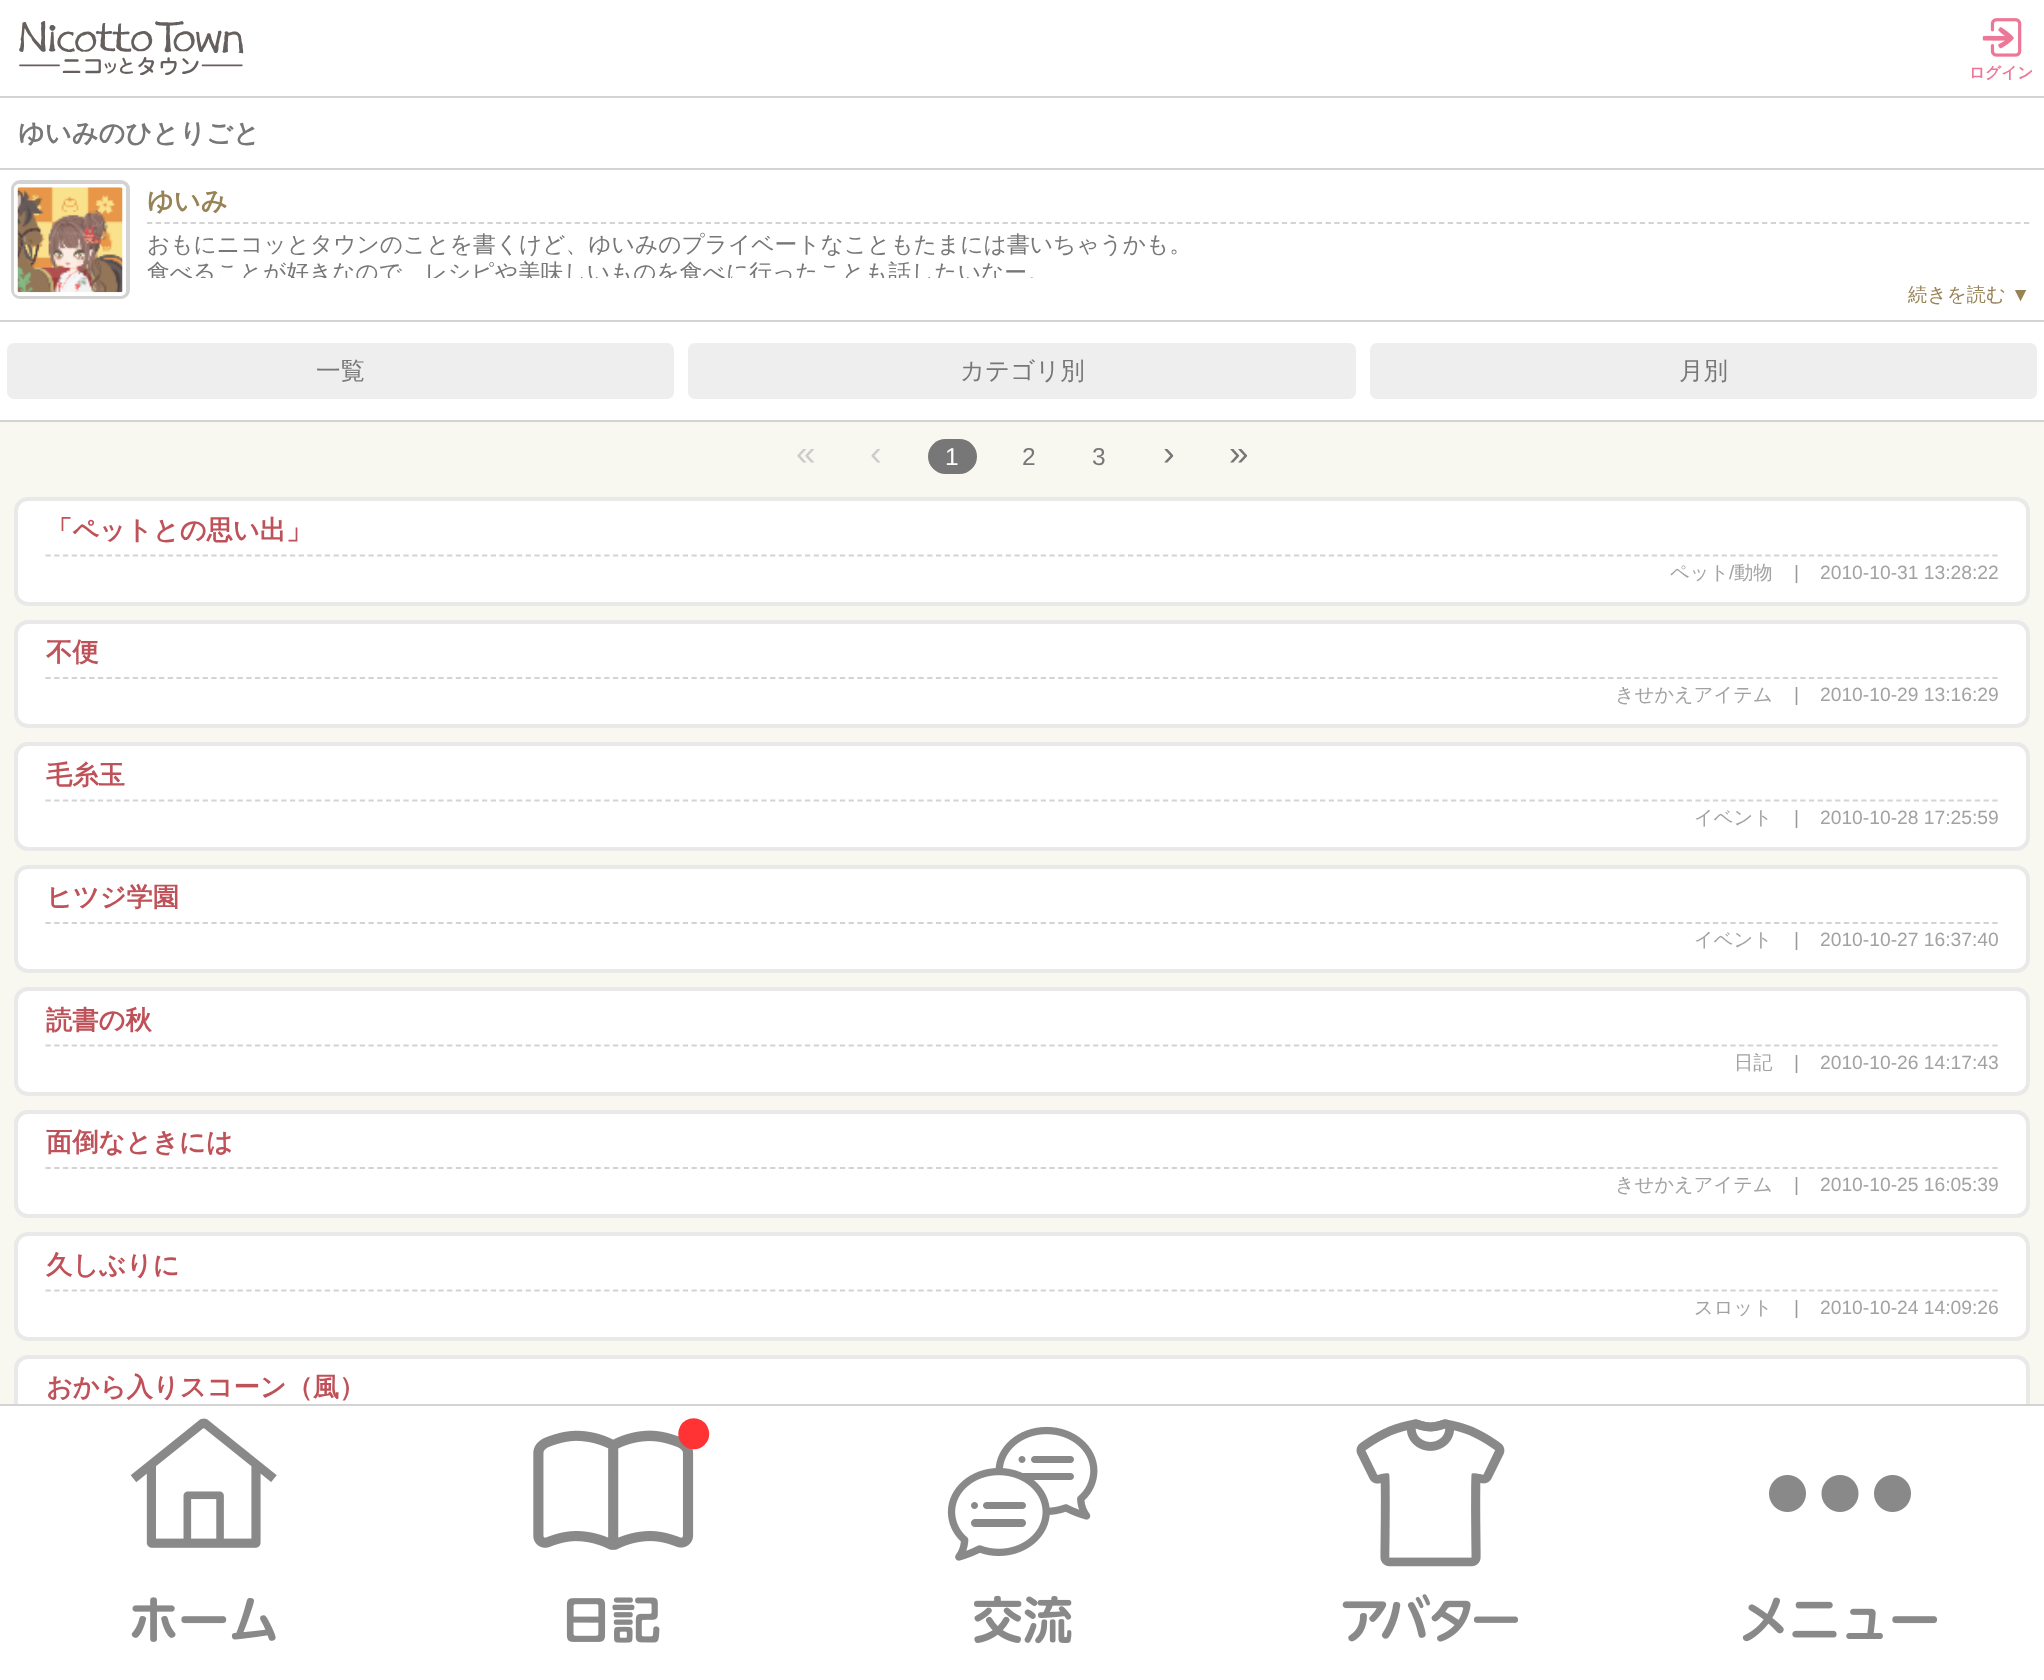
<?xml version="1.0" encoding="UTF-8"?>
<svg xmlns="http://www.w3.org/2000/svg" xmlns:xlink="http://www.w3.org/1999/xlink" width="2044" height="1680">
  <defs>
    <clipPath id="clip1"><rect x="147" y="224" width="1883" height="54" /></clipPath>
  </defs>
  <rect width="100%" height="100%" fill="#ffffff" />
  <rect y="96" width="2044" height="2" fill="#d3d3d3" />
  <image x="19" y="21" width="225" height="54" xlink:href="image1.png" />
  <image x="1982" y="18" width="40" height="39" xlink:href="image2.png" />
  <rect y="168" width="2044" height="2" fill="#d3d3d3" />
  <rect x="13" y="182" width="115" height="115" rx="7" fill="none" stroke="#d3d3d3" stroke-width="4" />
  <rect x="16" y="186" width="108" height="108" rx="3" fill="none" stroke="#ffffff" stroke-width="4" />
  <image x="17" y="187" width="106" height="106" xlink:href="image3.png" />
  <path d="M 147 223 h 1883" fill="none" stroke="#d3d3d3" stroke-width="1.8" stroke-dasharray="5.25 3.48" />
  <rect y="320" width="2044" height="2" fill="#d3d3d3" />
  <rect y="420" width="2044" height="2" fill="#d3d3d3" />
  <rect x="7" y="343" width="667" height="56" rx="7" fill="#eeeeee" />
  <rect x="688" y="343" width="668" height="56" rx="7" fill="#eeeeee" />
  <rect x="1370" y="343" width="667" height="56" rx="7" fill="#eeeeee" />
  <rect y="422" width="2044" height="982" fill="#f8f8f0" />
  <rect x="928" y="439" width="49" height="35" rx="17.5" fill="#777777" />
  <rect x="16" y="499" width="2012" height="105" rx="12" fill="#ffffff" stroke="#e9e9e9" stroke-width="4" />
  <path d="M 45.5 555.5 h 1953" fill="none" stroke="#d3d3d3" stroke-width="1.8" stroke-dasharray="5.25 3.48" />
  <rect x="16" y="622" width="2012" height="104" rx="12" fill="#ffffff" stroke="#e9e9e9" stroke-width="4" />
  <path d="M 45.5 678 h 1953" fill="none" stroke="#d3d3d3" stroke-width="1.8" stroke-dasharray="5.25 3.48" />
  <rect x="16" y="744" width="2012" height="105" rx="12" fill="#ffffff" stroke="#e9e9e9" stroke-width="4" />
  <path d="M 45.5 800.5 h 1953" fill="none" stroke="#d3d3d3" stroke-width="1.8" stroke-dasharray="5.25 3.48" />
  <rect x="16" y="867" width="2012" height="104" rx="12" fill="#ffffff" stroke="#e9e9e9" stroke-width="4" />
  <path d="M 45.5 923 h 1953" fill="none" stroke="#d3d3d3" stroke-width="1.8" stroke-dasharray="5.25 3.48" />
  <rect x="16" y="989" width="2012" height="105" rx="12" fill="#ffffff" stroke="#e9e9e9" stroke-width="4" />
  <path d="M 45.5 1045.5 h 1953" fill="none" stroke="#d3d3d3" stroke-width="1.8" stroke-dasharray="5.25 3.48" />
  <rect x="16" y="1112" width="2012" height="104" rx="12" fill="#ffffff" stroke="#e9e9e9" stroke-width="4" />
  <path d="M 45.5 1168 h 1953" fill="none" stroke="#d3d3d3" stroke-width="1.8" stroke-dasharray="5.25 3.48" />
  <rect x="16" y="1234" width="2012" height="105" rx="12" fill="#ffffff" stroke="#e9e9e9" stroke-width="4" />
  <path d="M 45.5 1290.5 h 1953" fill="none" stroke="#d3d3d3" stroke-width="1.8" stroke-dasharray="5.25 3.48" />
  <rect x="16" y="1357" width="2012" height="104" rx="12" fill="#ffffff" stroke="#e9e9e9" stroke-width="4" />
  <rect x="14" y="1406" width="2016" height="57" fill="#ffffff" />
  <rect y="1404" width="2044" height="2" fill="#d3d3d3" />
  <image x="130" y="1418" width="147" height="224" xlink:href="image4.png" />
  <image x="533" y="1430" width="161" height="213" xlink:href="image5.png" />
  <image x="947" y="1426" width="151" height="218" xlink:href="image6.png" />
  <image x="1342" y="1419" width="176" height="223" xlink:href="image7.png" />
  <image x="1742" y="1475" width="196" height="167" xlink:href="image8.png" />
  <text x="1969" y="78" style="font-family: WenQuanYi Zen Hei; font-size: 15.75px; font-weight: bold; fill: #ed7797">ログイン</text>
  <text x="18" y="142" style="font-family: WenQuanYi Zen Hei; font-size: 26.25px; font-weight: bold; fill: #777777">ゆいみのひとりごと</text>
  <text x="147" y="210" style="font-family: WenQuanYi Zen Hei; font-size: 26.25px; font-weight: bold; fill: #978356">ゆいみ</text>
  <text x="147" y="252" style="font-family: WenQuanYi Zen Hei; font-size: 22.75px; font-weight: 500; fill: #777777">おもにニコッとタウンのことを書くけど、ゆいみのプライベートなこともたまには書いちゃうかも。</text>
  <g clip-path="url(#clip1)">
    <text x="147" y="280" style="font-family: WenQuanYi Zen Hei; font-size: 22.75px; font-weight: 500; fill: #777777">食べることが好きなので、レシピや美味しいものを食べに行ったことも話したいなー。</text>
  </g>
  <text x="1908" y="301" style="font-family: WenQuanYi Zen Hei; font-size: 19.25px; font-weight: 500; fill: #978356">続きを読む</text>
  <text x="2011" y="301" style="font-family: Liberation Sans; font-size: 19.25px; fill: #978356">▼</text>
  <text x="316" y="379" style="font-family: WenQuanYi Zen Hei; font-size: 24.5px; font-weight: 500; fill: #777777">一覧</text>
  <text x="960" y="379" style="font-family: WenQuanYi Zen Hei; font-size: 24.5px; font-weight: 500; fill: #777777">カテゴリ別</text>
  <text x="1679" y="379" style="font-family: WenQuanYi Zen Hei; font-size: 24.5px; font-weight: 500; fill: #777777">月別</text>
  <text x="796" y="465" style="font-family: Liberation Sans; font-size: 35px; fill: #cccccc">«</text>
  <text x="870" y="465" style="font-family: Liberation Sans; font-size: 35px; fill: #cccccc">‹</text>
  <text x="945" y="465" style="font-family: Liberation Sans; font-size: 24.5px; fill: #ffffff">1</text>
  <text x="1022" y="465" style="font-family: Liberation Sans; font-size: 24.5px; fill: #777777">2</text>
  <text x="1092" y="465" style="font-family: Liberation Sans; font-size: 24.5px; fill: #777777">3</text>
  <text x="1163" y="465" style="font-family: Liberation Sans; font-size: 35px; fill: #777777">›</text>
  <text x="1229" y="465" style="font-family: Liberation Sans; font-size: 35px; fill: #777777">»</text>
  <text x="46" y="539" style="font-family: WenQuanYi Zen Hei; font-size: 26.25px; font-weight: bold; fill: #bf5158">「ペットとの思い出」</text>
  <text x="1670" y="579" style="font-family: WenQuanYi Zen Hei; font-size: 19.25px; font-weight: 500; fill: #a2a2a2">ペット</text>
  <text x="1729" y="579" style="font-family: Liberation Sans; font-size: 19.25px; fill: #a2a2a2">/</text>
  <text x="1734" y="579" style="font-family: WenQuanYi Zen Hei; font-size: 19.25px; font-weight: 500; fill: #a2a2a2">動物</text>
  <text x="1794" y="579" style="font-family: Liberation Sans; font-size: 19.25px; fill: #999999">|</text>
  <text x="1820" y="579" style="font-family: Liberation Sans; font-size: 19.25px; fill: #a2a2a2">2010-10-31 13:28:22</text>
  <text x="46" y="661" style="font-family: WenQuanYi Zen Hei; font-size: 26.25px; font-weight: bold; fill: #bf5158">不便</text>
  <text x="1615" y="701" style="font-family: WenQuanYi Zen Hei; font-size: 19.25px; font-weight: 500; fill: #a2a2a2">きせかえアイテム</text>
  <text x="1794" y="701" style="font-family: Liberation Sans; font-size: 19.25px; fill: #999999">|</text>
  <text x="1820" y="701" style="font-family: Liberation Sans; font-size: 19.25px; fill: #a2a2a2">2010-10-29 13:16:29</text>
  <text x="46" y="784" style="font-family: WenQuanYi Zen Hei; font-size: 26.25px; font-weight: bold; fill: #bf5158">毛糸玉</text>
  <text x="1694" y="824" style="font-family: WenQuanYi Zen Hei; font-size: 19.25px; font-weight: 500; fill: #a2a2a2">イベント</text>
  <text x="1794" y="824" style="font-family: Liberation Sans; font-size: 19.25px; fill: #999999">|</text>
  <text x="1820" y="824" style="font-family: Liberation Sans; font-size: 19.25px; fill: #a2a2a2">2010-10-28 17:25:59</text>
  <text x="46" y="906" style="font-family: WenQuanYi Zen Hei; font-size: 26.25px; font-weight: bold; fill: #bf5158">ヒツジ学園</text>
  <text x="1694" y="946" style="font-family: WenQuanYi Zen Hei; font-size: 19.25px; font-weight: 500; fill: #a2a2a2">イベント</text>
  <text x="1794" y="946" style="font-family: Liberation Sans; font-size: 19.25px; fill: #999999">|</text>
  <text x="1820" y="946" style="font-family: Liberation Sans; font-size: 19.25px; fill: #a2a2a2">2010-10-27 16:37:40</text>
  <text x="46" y="1029" style="font-family: WenQuanYi Zen Hei; font-size: 26.25px; font-weight: bold; fill: #bf5158">読書の秋</text>
  <text x="1734" y="1069" style="font-family: WenQuanYi Zen Hei; font-size: 19.25px; font-weight: 500; fill: #a2a2a2">日記</text>
  <text x="1794" y="1069" style="font-family: Liberation Sans; font-size: 19.25px; fill: #999999">|</text>
  <text x="1820" y="1069" style="font-family: Liberation Sans; font-size: 19.25px; fill: #a2a2a2">2010-10-26 14:17:43</text>
  <text x="46" y="1151" style="font-family: WenQuanYi Zen Hei; font-size: 26.25px; font-weight: bold; fill: #bf5158">面倒なときには</text>
  <text x="1615" y="1191" style="font-family: WenQuanYi Zen Hei; font-size: 19.25px; font-weight: 500; fill: #a2a2a2">きせかえアイテム</text>
  <text x="1794" y="1191" style="font-family: Liberation Sans; font-size: 19.25px; fill: #999999">|</text>
  <text x="1820" y="1191" style="font-family: Liberation Sans; font-size: 19.25px; fill: #a2a2a2">2010-10-25 16:05:39</text>
  <text x="46" y="1274" style="font-family: WenQuanYi Zen Hei; font-size: 26.25px; font-weight: bold; fill: #bf5158">久しぶりに</text>
  <text x="1694" y="1314" style="font-family: WenQuanYi Zen Hei; font-size: 19.25px; font-weight: 500; fill: #a2a2a2">スロット</text>
  <text x="1794" y="1314" style="font-family: Liberation Sans; font-size: 19.25px; fill: #999999">|</text>
  <text x="1820" y="1314" style="font-family: Liberation Sans; font-size: 19.25px; fill: #a2a2a2">2010-10-24 14:09:26</text>
  <text x="46" y="1396" style="font-family: WenQuanYi Zen Hei; font-size: 26.25px; font-weight: bold; fill: #bf5158">おから入りスコーン（風）</text>
  <text x="672" y="1454" style="font-family: Liberation Sans; font-size: 72px; fill: #ff3333">●</text>
</svg>
